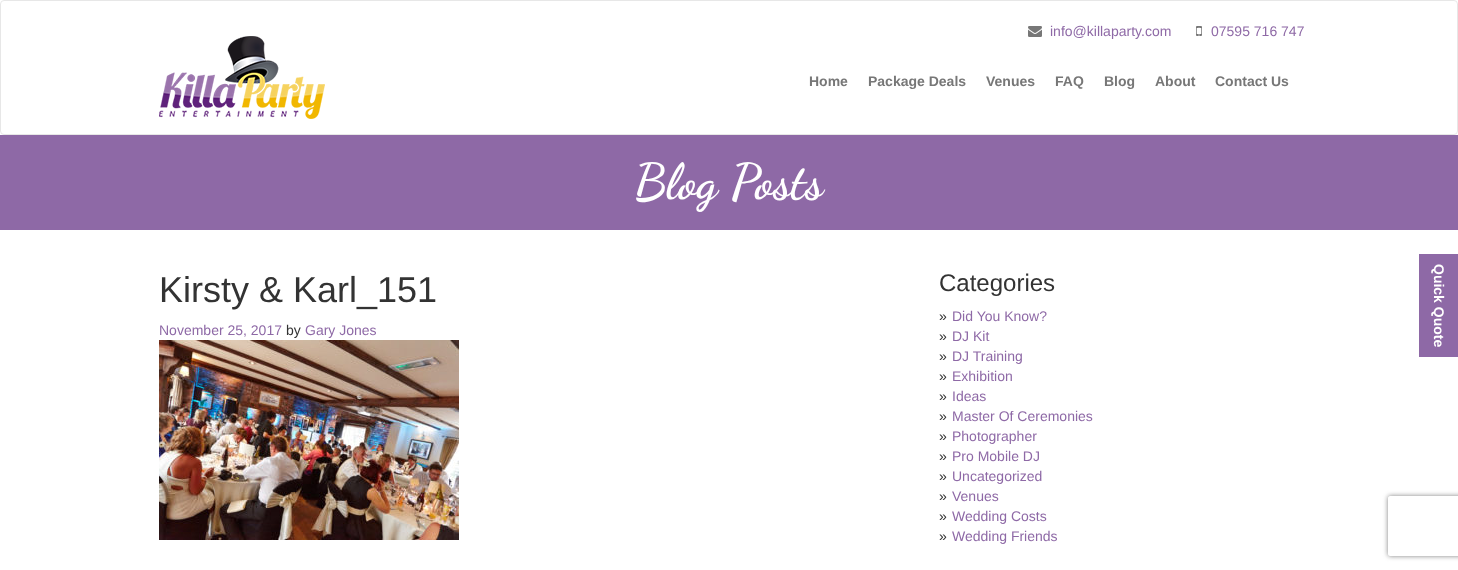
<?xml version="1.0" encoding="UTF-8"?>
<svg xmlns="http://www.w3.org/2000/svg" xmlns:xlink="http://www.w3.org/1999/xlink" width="1458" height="570">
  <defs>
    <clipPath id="clip1"><path d="M 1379 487 h 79 v 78 h -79 z m 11 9 h 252 c 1 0 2 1 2 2 v 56 c 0 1 -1 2 -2 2 h -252 c -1 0 -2 -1 -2 -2 v -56 c 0 -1 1 -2 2 -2 z" clip-rule="evenodd" /></clipPath>
  </defs>
  <rect width="100%" height="100%" fill="#ffffff" />
  <rect x="0.5" y="0.5" width="1457" height="134" rx="3.5" fill="none" stroke="#e7e7e7" />
  <image x="1028" y="26" width="14" height="11" xlink:href="image1.png" />
  <image x="1196" y="26" width="6" height="10" xlink:href="image2.png" />
  <image x="159" y="36" width="166" height="83" xlink:href="image3.png" />
  <rect y="135" width="1458" height="95" fill="#8e69a6" />
  <image x="159" y="340" width="300" height="200" xlink:href="image4.png" />
  <rect x="1419" y="254" width="39" height="103" fill="#8e69a6" />
  <g clip-path="url(#clip1)">
    <rect x="1388" y="496" width="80" height="60" rx="2" fill="#808080" filter="blur(2.5px)" />
  </g>
  <text x="1050" y="36" style="font-family: Liberation Sans; font-size: 14px; fill: #8e69a6">info@killaparty.com</text>
  <text x="1211" y="36" style="font-family: Liberation Sans; font-size: 14px; fill: #8e69a6">07595 716 747</text>
  <text x="809" y="86" style="font-family: Liberation Sans; font-size: 14px; font-weight: bold; fill: #777777">Home</text>
  <text x="868" y="86" style="font-family: Liberation Sans; font-size: 14px; font-weight: bold; fill: #777777">Package Deals</text>
  <text x="986" y="86" style="font-family: Liberation Sans; font-size: 14px; font-weight: bold; fill: #777777">Venues</text>
  <text x="1055" y="86" style="font-family: Liberation Sans; font-size: 14px; font-weight: bold; fill: #777777">FAQ</text>
  <text x="1104" y="86" style="font-family: Liberation Sans; font-size: 14px; font-weight: bold; fill: #777777">Blog</text>
  <text x="1155" y="86" style="font-family: Liberation Sans; font-size: 14px; font-weight: bold; fill: #777777">About</text>
  <text x="1215" y="86" style="font-family: Liberation Sans; font-size: 14px; font-weight: bold; fill: #777777">Contact Us</text>
  <text x="634" y="198" style="font-family: Dancing Script; font-size: 50px; font-weight: bold; fill: #ffffff">Blog Posts</text>
  <text x="159" y="302" style="font-family: Liberation Sans; font-size: 36px; fill: #333333">Kirsty &amp; Karl_151</text>
  <text x="159" y="335" style="font-family: Liberation Sans; font-size: 14px; fill: #8e69a6">November 25, 2017</text>
  <text x="286" y="335" style="font-family: Liberation Sans; font-size: 14px; fill: #333333">by</text>
  <text x="305" y="335" style="font-family: Liberation Sans; font-size: 14px; fill: #8e69a6">Gary Jones</text>
  <text x="939" y="291" style="font-family: Liberation Sans; font-size: 24px; fill: #333333">Categories</text>
  <text x="939" y="321" style="font-family: Liberation Sans; font-size: 14px; fill: #333333">»</text>
  <text x="952" y="321" style="font-family: Liberation Sans; font-size: 14px; fill: #8e69a6">Did You Know?</text>
  <text x="939" y="341" style="font-family: Liberation Sans; font-size: 14px; fill: #333333">»</text>
  <text x="952" y="341" style="font-family: Liberation Sans; font-size: 14px; fill: #8e69a6">DJ Kit</text>
  <text x="939" y="361" style="font-family: Liberation Sans; font-size: 14px; fill: #333333">»</text>
  <text x="952" y="361" style="font-family: Liberation Sans; font-size: 14px; fill: #8e69a6">DJ Training</text>
  <text x="939" y="381" style="font-family: Liberation Sans; font-size: 14px; fill: #333333">»</text>
  <text x="952" y="381" style="font-family: Liberation Sans; font-size: 14px; fill: #8e69a6">Exhibition</text>
  <text x="939" y="401" style="font-family: Liberation Sans; font-size: 14px; fill: #333333">»</text>
  <text x="952" y="401" style="font-family: Liberation Sans; font-size: 14px; fill: #8e69a6">Ideas</text>
  <text x="939" y="421" style="font-family: Liberation Sans; font-size: 14px; fill: #333333">»</text>
  <text x="952" y="421" style="font-family: Liberation Sans; font-size: 14px; fill: #8e69a6">Master Of Ceremonies</text>
  <text x="939" y="441" style="font-family: Liberation Sans; font-size: 14px; fill: #333333">»</text>
  <text x="952" y="441" style="font-family: Liberation Sans; font-size: 14px; fill: #8e69a6">Photographer</text>
  <text x="939" y="461" style="font-family: Liberation Sans; font-size: 14px; fill: #333333">»</text>
  <text x="952" y="461" style="font-family: Liberation Sans; font-size: 14px; fill: #8e69a6">Pro Mobile DJ</text>
  <text x="939" y="481" style="font-family: Liberation Sans; font-size: 14px; fill: #333333">»</text>
  <text x="952" y="481" style="font-family: Liberation Sans; font-size: 14px; fill: #8e69a6">Uncategorized</text>
  <text x="939" y="501" style="font-family: Liberation Sans; font-size: 14px; fill: #333333">»</text>
  <text x="952" y="501" style="font-family: Liberation Sans; font-size: 14px; fill: #8e69a6">Venues</text>
  <text x="939" y="521" style="font-family: Liberation Sans; font-size: 14px; fill: #333333">»</text>
  <text x="952" y="521" style="font-family: Liberation Sans; font-size: 14px; fill: #8e69a6">Wedding Costs</text>
  <text x="939" y="541" style="font-family: Liberation Sans; font-size: 14px; fill: #333333">»</text>
  <text x="952" y="541" style="font-family: Liberation Sans; font-size: 14px; fill: #8e69a6">Wedding Friends</text>
  <text x="1434" y="264" transform="rotate(90 1434 264)" style="font-family: Liberation Sans; font-size: 14px; font-weight: bold; fill: #ffffff">Quick Quote</text>
</svg>
